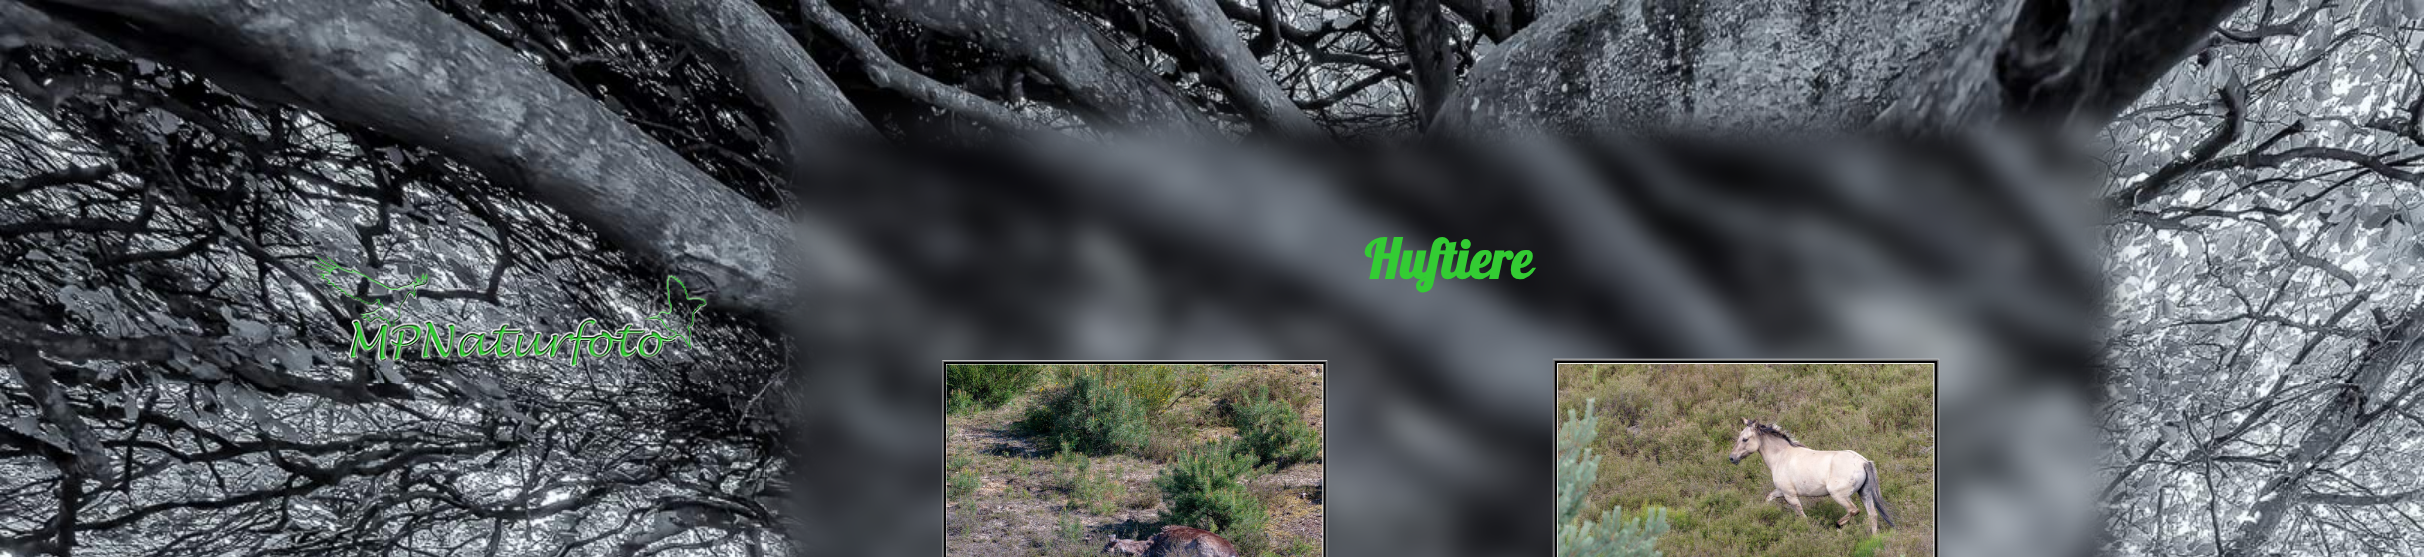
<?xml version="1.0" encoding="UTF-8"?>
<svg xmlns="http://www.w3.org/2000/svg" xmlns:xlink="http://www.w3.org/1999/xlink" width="2424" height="557">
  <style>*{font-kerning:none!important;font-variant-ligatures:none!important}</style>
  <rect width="100%" height="100%" fill="#ffffff" />
  <image x="0" y="0" width="2424" height="557" xlink:href="image1.png" />
  <image x="312" y="254" width="396" height="112" xlink:href="image2.png" />
  <image x="757" y="92" width="1383" height="465" xlink:href="image3.png" />
  <image x="942" y="360" width="386" height="197" xlink:href="image4.png" />
  <image x="1552" y="358" width="388" height="199" xlink:href="image5.png" />
  <text x="1364" y="279" style="font-family: Lobster; font-size: 54px; font-weight: bold; fill: #33cc33">Huftiere</text>
</svg>
